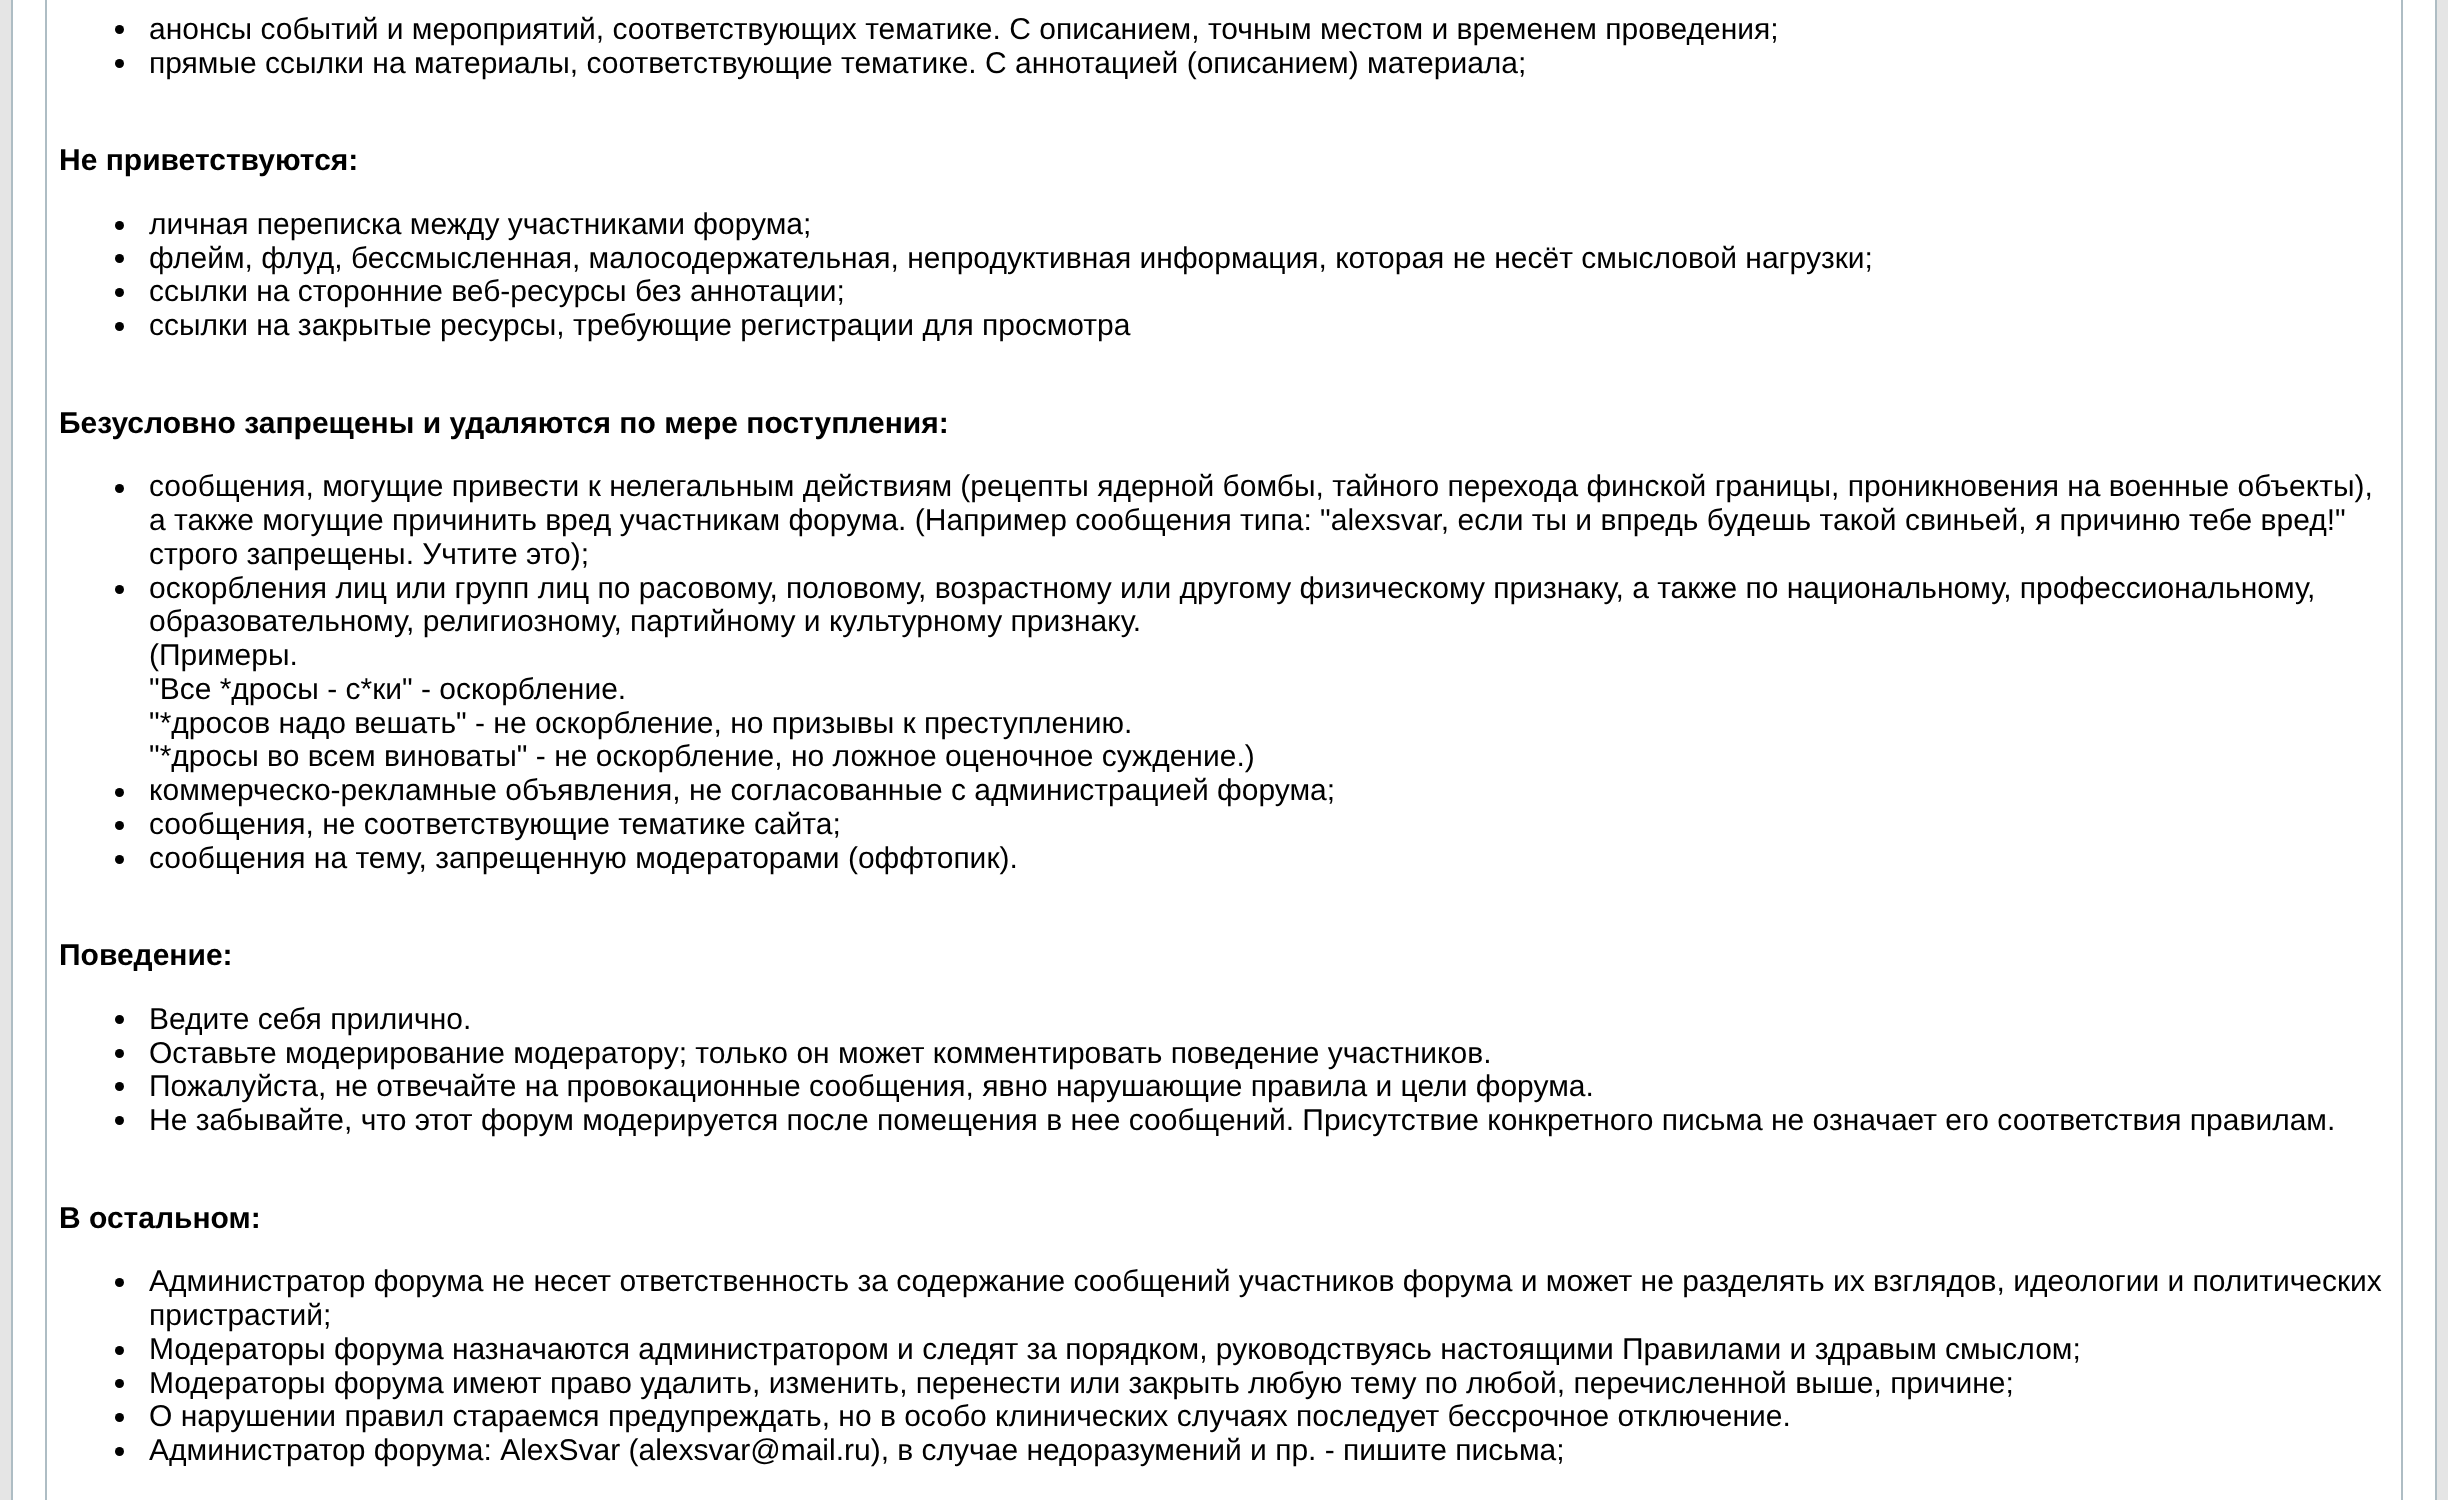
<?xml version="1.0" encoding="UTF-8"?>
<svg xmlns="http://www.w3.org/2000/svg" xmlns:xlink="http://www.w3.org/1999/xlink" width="2448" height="1500">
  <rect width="100%" height="100%" fill="#e5e5e5" />
  <rect x="12" y="-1" width="2424" height="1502" fill="#ffffff" stroke="#aebdc4" stroke-width="2" />
  <rect x="46" y="-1" width="2356" height="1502" fill="none" stroke="#aebdc4" stroke-width="2" />
  <circle cx="119.5" cy="29.5" r="4.5" fill="#000000" />
  <circle cx="119.5" cy="63.5" r="4.5" fill="#000000" />
  <circle cx="119.5" cy="225.5" r="4.5" fill="#000000" />
  <circle cx="119.5" cy="258.5" r="4.5" fill="#000000" />
  <circle cx="119.5" cy="292.5" r="4.5" fill="#000000" />
  <circle cx="119.5" cy="326.5" r="4.5" fill="#000000" />
  <circle cx="119.5" cy="488.5" r="4.5" fill="#000000" />
  <circle cx="119.5" cy="589.5" r="4.5" fill="#000000" />
  <circle cx="119.5" cy="792.5" r="4.5" fill="#000000" />
  <circle cx="119.5" cy="825.5" r="4.5" fill="#000000" />
  <circle cx="119.5" cy="859.5" r="4.5" fill="#000000" />
  <circle cx="119.5" cy="1019.5" r="4.5" fill="#000000" />
  <circle cx="119.5" cy="1053.5" r="4.5" fill="#000000" />
  <circle cx="119.5" cy="1086.5" r="4.5" fill="#000000" />
  <circle cx="119.5" cy="1120.5" r="4.5" fill="#000000" />
  <circle cx="119.5" cy="1282.5" r="4.5" fill="#000000" />
  <circle cx="119.5" cy="1350.5" r="4.5" fill="#000000" />
  <circle cx="119.5" cy="1383.5" r="4.5" fill="#000000" />
  <circle cx="119.5" cy="1417.5" r="4.5" fill="#000000" />
  <circle cx="119.5" cy="1451.5" r="4.5" fill="#000000" />
  <text x="149" y="39" style="font-family: Liberation Sans; font-size: 30px; fill: #000000">анонсы событий и мероприятий, соответствующих тематике. С описанием, точным местом и временем проведения;</text>
  <text x="149" y="73" style="font-family: Liberation Sans; font-size: 30px; fill: #000000">прямые ссылки на материалы, соответствующие тематике. С аннотацией (описанием) материала;</text>
  <text x="59" y="170" style="font-family: Liberation Sans; font-size: 30px; font-weight: bold; fill: #000000">Не приветствуются:</text>
  <text x="149" y="234" style="font-family: Liberation Sans; font-size: 30px; fill: #000000">личная переписка между участниками форума;</text>
  <text x="149" y="268" style="font-family: Liberation Sans; font-size: 30px; fill: #000000">флейм, флуд, бессмысленная, малосодержательная, непродуктивная информация, которая не несёт смысловой нагрузки;</text>
  <text x="149" y="301" style="font-family: Liberation Sans; font-size: 30px; fill: #000000">ссылки на сторонние веб-ресурсы без аннотации;</text>
  <text x="149" y="335" style="font-family: Liberation Sans; font-size: 30px; fill: #000000">ссылки на закрытые ресурсы, требующие регистрации для просмотра</text>
  <text x="59" y="433" style="font-family: Liberation Sans; font-size: 30px; font-weight: bold; fill: #000000">Безусловно запрещены и удаляются по мере поступления:</text>
  <text x="149" y="496" style="font-family: Liberation Sans; font-size: 30px; fill: #000000">сообщения, могущие пpивести к нелегальным действиям (рецепты ядерной бомбы, тайного перехода финской границы, проникновения на военные объекты),</text>
  <text x="149" y="530" style="font-family: Liberation Sans; font-size: 30px; fill: #000000">а также могущие пpичинить вpед участникам форума. (Hапpимеp сообщения типа: "alexsvar, если ты и впpедь будешь такой свиньей, я пpичиню тебе вpед!"</text>
  <text x="149" y="564" style="font-family: Liberation Sans; font-size: 30px; fill: #000000">стpого запpещены. Учтите это);</text>
  <text x="149" y="598" style="font-family: Liberation Sans; font-size: 30px; fill: #000000">оскорбления лиц или групп лиц по расовому, половому, возрастному или другому физическому признаку, а также по национальному, профессиональному,</text>
  <text x="149" y="631" style="font-family: Liberation Sans; font-size: 30px; fill: #000000">образовательному, религиозному, партийному и культурному признаку.</text>
  <text x="149" y="665" style="font-family: Liberation Sans; font-size: 30px; fill: #000000">(Примеры.</text>
  <text x="149" y="699" style="font-family: Liberation Sans; font-size: 30px; fill: #000000">"Все *дросы - с*ки" - оскорбление.</text>
  <text x="149" y="733" style="font-family: Liberation Sans; font-size: 30px; fill: #000000">"*дросов надо вешать" - не оскорбление, но призывы к преступлению.</text>
  <text x="149" y="766" style="font-family: Liberation Sans; font-size: 30px; fill: #000000">"*дросы во всем виноваты" - не оскорбление, но ложное оценочное суждение.)</text>
  <text x="149" y="800" style="font-family: Liberation Sans; font-size: 30px; fill: #000000">коммерческо-рекламные объявления, не согласованные с администрацией форума;</text>
  <text x="149" y="834" style="font-family: Liberation Sans; font-size: 30px; fill: #000000">сообщения, не соответствующие тематике сайта;</text>
  <text x="149" y="868" style="font-family: Liberation Sans; font-size: 30px; fill: #000000">сообщения на тему, запрещенную модераторами (оффтопик).</text>
  <text x="59" y="965" style="font-family: Liberation Sans; font-size: 30px; font-weight: bold; fill: #000000">Поведение:</text>
  <text x="149" y="1029" style="font-family: Liberation Sans; font-size: 30px; fill: #000000">Ведите себя прилично.</text>
  <text x="149" y="1063" style="font-family: Liberation Sans; font-size: 30px; fill: #000000">Оставьте модеpиpование модеpатоpу; только он может комментиpовать поведение участников.</text>
  <text x="149" y="1096" style="font-family: Liberation Sans; font-size: 30px; fill: #000000">Пожалуйста, не отвечайте на пpовокационные сообщения, явно наpушающие пpавила и цели форума.</text>
  <text x="149" y="1130" style="font-family: Liberation Sans; font-size: 30px; fill: #000000">Hе забывайте, что этот форум модеpиpуется после помещения в нее сообщений. Пpисутствие конкpетного письма не означает его соответствия пpавилам.</text>
  <text x="59" y="1228" style="font-family: Liberation Sans; font-size: 30px; font-weight: bold; fill: #000000">В остальном:</text>
  <text x="149" y="1291" style="font-family: Liberation Sans; font-size: 30px; fill: #000000">Администратор форума не несет ответственность за содержание сообщений участников форума и может не разделять их взглядов, идеологии и политических</text>
  <text x="149" y="1325" style="font-family: Liberation Sans; font-size: 30px; fill: #000000">пристрастий;</text>
  <text x="149" y="1359" style="font-family: Liberation Sans; font-size: 30px; fill: #000000">Модераторы форума назначаются администратором и следят за порядком, руководствуясь настоящими Правилами и здравым смыслом;</text>
  <text x="149" y="1393" style="font-family: Liberation Sans; font-size: 30px; fill: #000000">Модераторы форума имеют право удалить, изменить, перенести или закрыть любую тему по любой, перечисленной выше, причине;</text>
  <text x="149" y="1426" style="font-family: Liberation Sans; font-size: 30px; fill: #000000">О нарушении правил стараемся предупреждать, но в особо клинических случаях последует бессрочное отключение.</text>
  <text x="149" y="1460" style="font-family: Liberation Sans; font-size: 30px; fill: #000000">Администратор форума: AlexSvar (alexsvar@mail.ru), в случае недоразумений и пр. - пишите письма;</text>
</svg>
